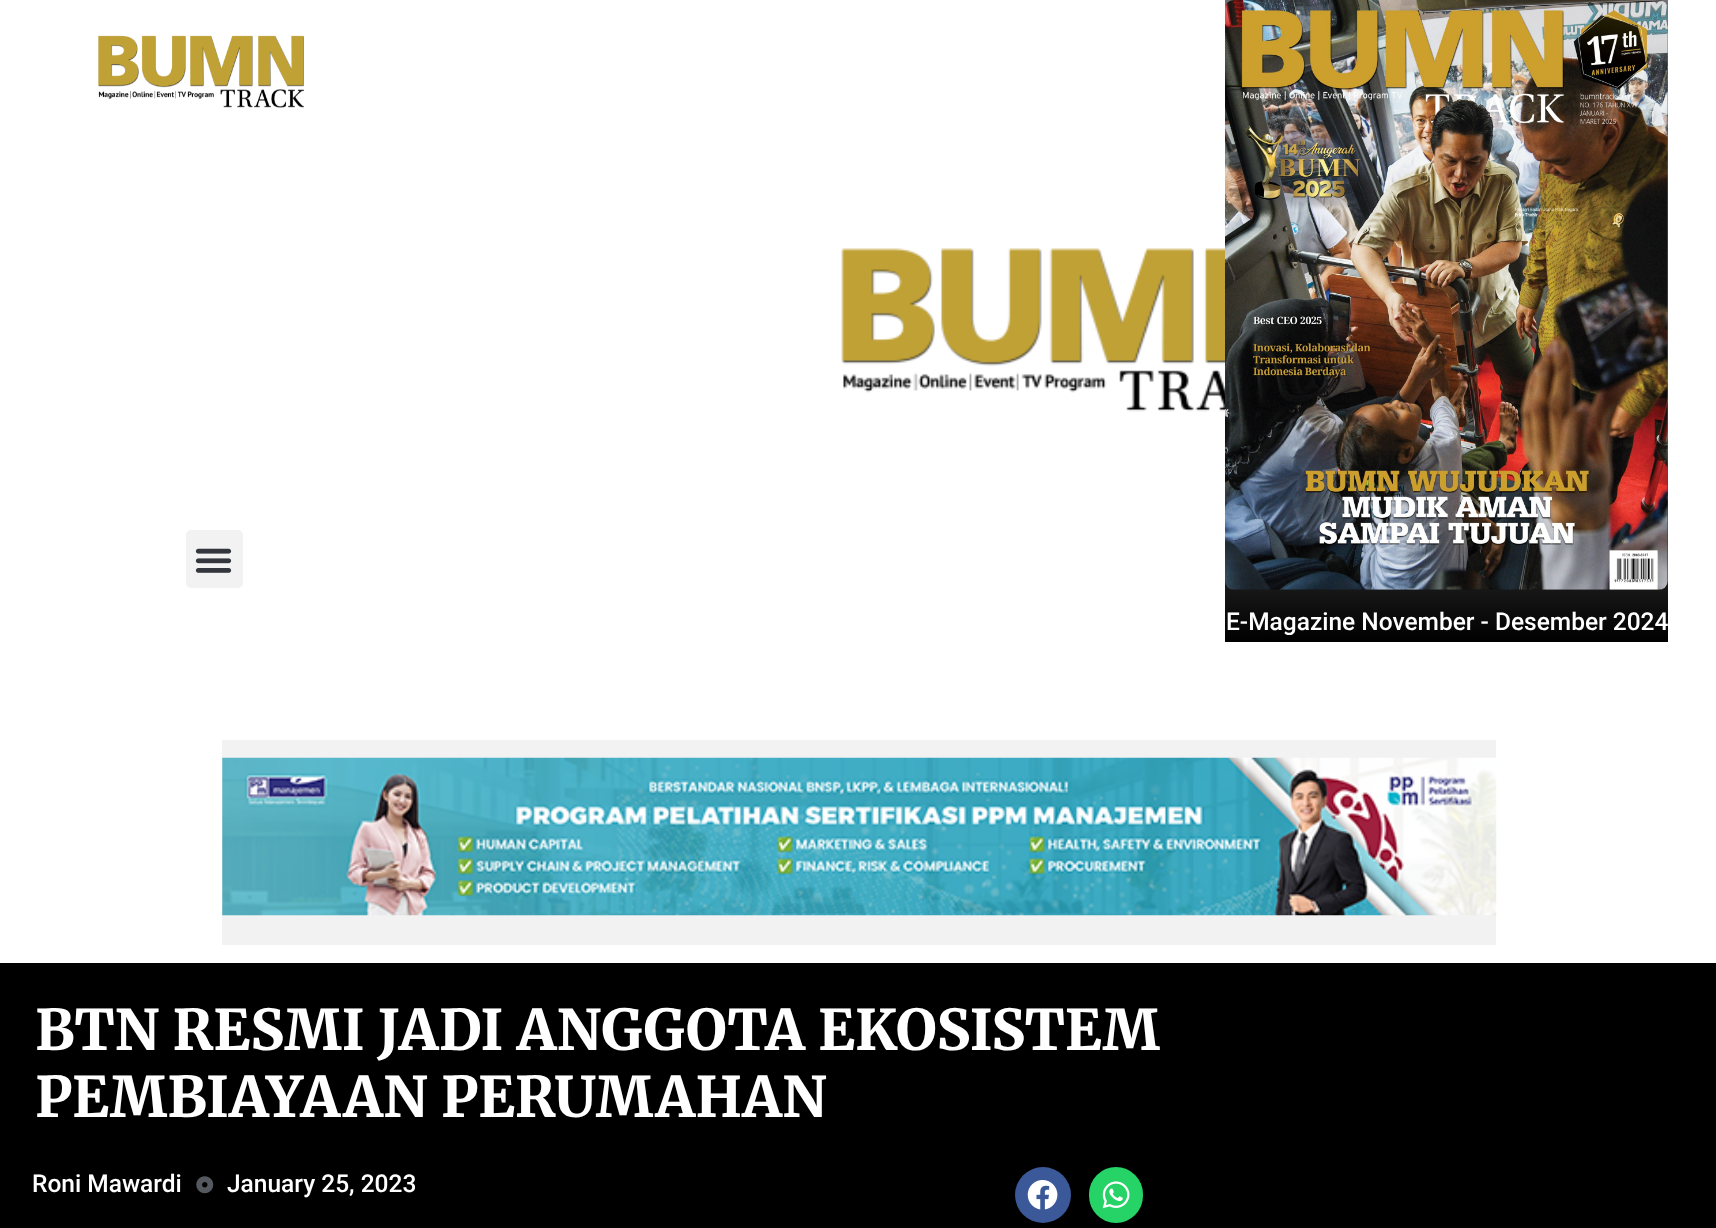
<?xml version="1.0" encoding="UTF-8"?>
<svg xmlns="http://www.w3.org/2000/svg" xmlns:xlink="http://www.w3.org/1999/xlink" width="1716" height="1228">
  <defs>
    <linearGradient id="g1" gradientUnits="userSpaceOnUse" x1="1446" y1="0" x2="1446" y2="642"><stop offset="0.6" stop-color="#707070" /><stop offset="1" stop-color="#000000" /></linearGradient>
  </defs>
  <rect width="100%" height="100%" fill="#ffffff" />
  <image x="98" y="35" width="206" height="73" xlink:href="image1.png" />
  <image x="841" y="248" width="384" height="164" xlink:href="image2.png" />
  <rect x="186" y="530" width="57" height="58" rx="5" fill="#f2f2f2" />
  <image x="195" y="548" width="37" height="25" xlink:href="image3.png" />
  <rect y="963" width="1716" height="265" fill="#000000" />
  <rect x="1225" width="443" height="642" fill="url(#g1)" />
  <image x="1225" y="0" width="443" height="590" xlink:href="image4.png" />
  <image x="196" y="1176" width="18" height="18" xlink:href="image5.png" />
  <circle cx="1043" cy="1195" r="28" fill="#3b5998" />
  <image x="1027" y="1180" width="31" height="30" xlink:href="image6.png" />
  <rect x="1089" y="1167" width="54" height="56" rx="27" fill="#25d366" />
  <image x="1102" y="1181" width="28" height="28" xlink:href="image7.png" />
  <rect x="222" y="740" width="1274" height="205" fill="#f2f2f2" />
  <image x="222" y="757" width="1275" height="159" xlink:href="image8.png" />
  <text x="1226" y="630" style="font-family: Roboto; font-size: 24.5px; font-weight: 500; fill: #ffffff">E-Magazine November - Desember 2024</text>
  <text x="35" y="1050" style="font-family: Merriweather; font-size: 56px; font-weight: 800; fill: #ffffff">BTN RESMI JADI ANGGOTA EKOSISTEM</text>
  <text x="35" y="1117" style="font-family: Merriweather; font-size: 56px; font-weight: 800; fill: #ffffff">PEMBIAYAAN PERUMAHAN</text>
  <text x="32" y="1192" style="font-family: Roboto; font-size: 24.5px; font-weight: 500; fill: #ffffff">Roni Mawardi</text>
  <text x="227" y="1192" style="font-family: Roboto; font-size: 24.5px; font-weight: 500; fill: #ffffff">January 25, 2023</text>
</svg>
